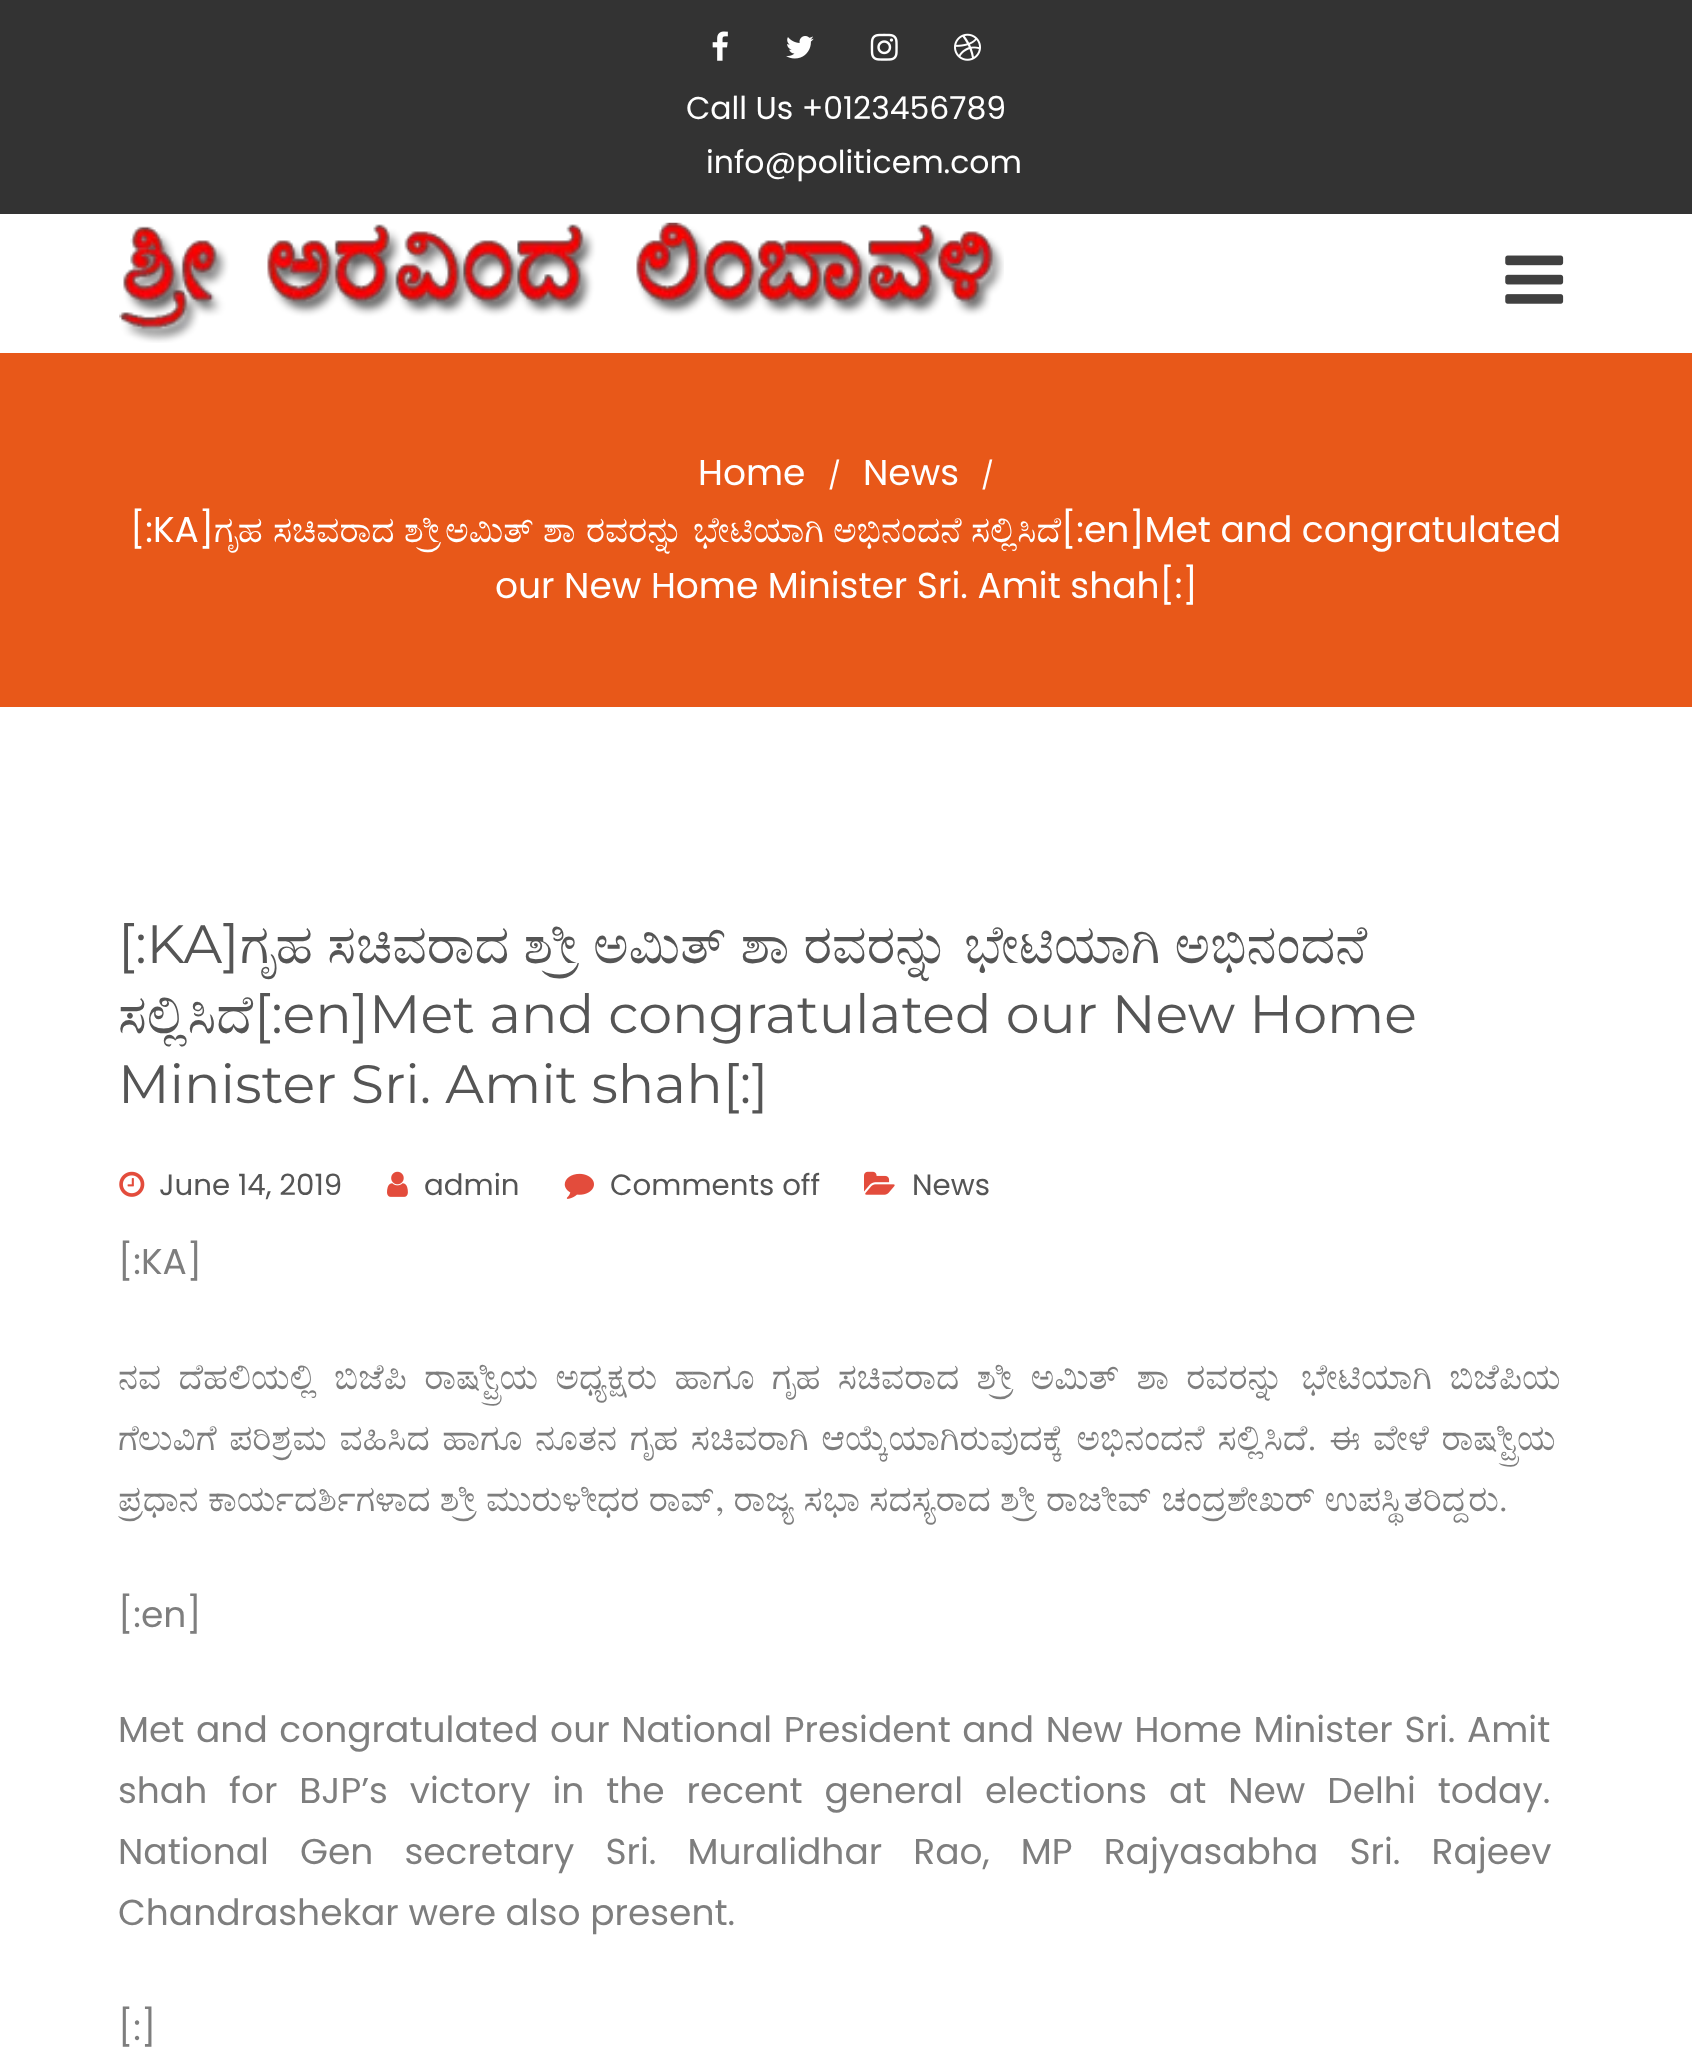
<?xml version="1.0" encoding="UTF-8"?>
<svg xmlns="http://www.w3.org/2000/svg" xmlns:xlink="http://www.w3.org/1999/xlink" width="1692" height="2071">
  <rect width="100%" height="100%" fill="#ffffff" />
  <rect width="1692" height="214" fill="#333333" />
  <image x="712" y="31" width="16" height="30" xlink:href="image1.png" />
  <image x="786" y="36" width="28" height="23" xlink:href="image2.png" />
  <image x="870" y="33" width="28" height="28" xlink:href="image3.png" />
  <image x="954" y="33" width="27" height="28" xlink:href="image4.png" />
  <image x="119" y="222" width="885" height="121" xlink:href="image5.png" />
  <image x="1505" y="255" width="59" height="49" xlink:href="image6.png" />
  <rect y="353" width="1692" height="354" fill="#e85819" />
  <image x="119" y="1171" width="26" height="26" xlink:href="image7.png" />
  <image x="387" y="1171" width="21" height="26" xlink:href="image8.png" />
  <image x="564" y="1173" width="30" height="26" xlink:href="image9.png" />
  <image x="864" y="1171" width="31" height="24" xlink:href="image10.png" />
  <text x="686" y="119" style="font-family: Poppins; font-size: 31.5px; fill: #ffffff">Call Us +0123456789</text>
  <text x="706" y="173" style="font-family: Poppins; font-size: 31.5px; fill: #ffffff">info@politicem.com</text>
  <text x="698" y="485" style="font-family: Poppins; font-size: 36px; fill: #ffffff">Home</text>
  <text x="828" y="485" style="font-family: Poppins; font-size: 27px; fill: #ffffff">/</text>
  <text x="863" y="485" style="font-family: Poppins; font-size: 36px; fill: #ffffff">News</text>
  <text x="981" y="485" style="font-family: Poppins; font-size: 27px; fill: #ffffff">/</text>
  <text x="130" y="542" style="font-family: Poppins; font-size: 36px; fill: #ffffff">[:KA]</text>
  <text x="214" y="542" style="font-family: FreeSerif; font-size: 36px; fill: #ffffff">ಗೃಹ</text>
  <text x="273" y="542" style="font-family: FreeSerif; font-size: 36px; fill: #ffffff">ಸಚಿವರಾದ</text>
  <text x="404" y="542" style="font-family: FreeSerif; font-size: 36px; fill: #ffffff">ಶ್ರೀ</text>
  <text x="445" y="542" style="font-family: FreeSerif; font-size: 36px; fill: #ffffff">ಅಮಿತ್</text>
  <text x="543" y="542" style="font-family: FreeSerif; font-size: 36px; fill: #ffffff">ಶಾ</text>
  <text x="586" y="542" style="font-family: FreeSerif; font-size: 36px; fill: #ffffff">ರವರನ್ನು</text>
  <text x="693" y="542" style="font-family: FreeSerif; font-size: 36px; fill: #ffffff">ಭೇಟಿಯಾಗಿ</text>
  <text x="833" y="542" style="font-family: FreeSerif; font-size: 36px; fill: #ffffff">ಅಭಿನಂದನೆ</text>
  <text x="971" y="542" style="font-family: FreeSerif; font-size: 36px; fill: #ffffff">ಸಲ್ಲಿಸಿದೆ</text>
  <text x="1061" y="542" style="font-family: Poppins; font-size: 36px; fill: #ffffff">[:en]Met and congratulated</text>
  <text x="495" y="598" style="font-family: Poppins; font-size: 36px; fill: #ffffff">our New Home Minister Sri. Amit shah[:]</text>
  <text x="118" y="963" style="font-family: Montserrat; font-size: 54px; fill: #555555">[:KA]</text>
  <text x="240" y="963" word-spacing="0.75" style="font-family: FreeSerif; font-size: 54px; fill: #555555">ಗೃಹ ಸಚಿವರಾದ ಶ್ರೀ ಅಮಿತ್ ಶಾ ರವರನ್ನು ಭೇಟಿಯಾಗಿ ಅಭಿನಂದನೆ</text>
  <text x="118" y="1033" style="font-family: FreeSerif; font-size: 54px; fill: #555555">ಸಲ್ಲಿಸಿದೆ</text>
  <text x="254" y="1033" style="font-family: Montserrat; font-size: 54px; fill: #555555">[:en]Met and congratulated our New Home</text>
  <text x="118" y="1103" style="font-family: Montserrat; font-size: 54px; fill: #555555">Minister Sri. Amit shah[:]</text>
  <text x="159" y="1195" style="font-family: Poppins; font-size: 29.25px; fill: #555555">June 14, 2019</text>
  <text x="424" y="1195" style="font-family: Poppins; font-size: 29.25px; fill: #555555">admin</text>
  <text x="610" y="1195" style="font-family: Poppins; font-size: 29.25px; fill: #555555">Comments off</text>
  <text x="912" y="1195" style="font-family: Poppins; font-size: 29.25px; fill: #555555">News</text>
  <text x="118" y="1274" style="font-family: Poppins; font-size: 36px; fill: #7e7e7e">[:KA]</text>
  <text x="118" y="1389" word-spacing="8.25" style="font-family: FreeSerif; font-size: 36px; fill: #7e7e7e">ನವ ದೆಹಲಿಯಲ್ಲಿ ಬಿಜೆಪಿ ರಾಷ್ಟ್ರೀಯ ಅಧ್ಯಕ್ಷರು ಹಾಗೂ ಗೃಹ ಸಚಿವರಾದ ಶ್ರೀ ಅಮಿತ್ ಶಾ ರವರನ್ನು ಭೇಟಿಯಾಗಿ ಬಿಜೆಪಿಯ</text>
  <text x="118" y="1450" word-spacing="3.6" style="font-family: FreeSerif; font-size: 36px; fill: #7e7e7e">ಗೆಲುವಿಗೆ ಪರಿಶ್ರಮ ವಹಿಸಿದ ಹಾಗೂ ನೂತನ ಗೃಹ ಸಚಿವರಾಗಿ ಆಯ್ಕೆಯಾಗಿರುವುದಕ್ಕೆ ಅಭಿನಂದನೆ ಸಲ್ಲಿಸಿದೆ. ಈ ವೇಳೆ ರಾಷ್ಟ್ರೀಯ</text>
  <text x="118" y="1511" word-spacing="0.25" style="font-family: FreeSerif; font-size: 36px; fill: #7e7e7e">ಪ್ರಧಾನ ಕಾರ್ಯದರ್ಶಿಗಳಾದ ಶ್ರೀ ಮುರುಳೀಧರ ರಾವ್, ರಾಜ್ಯ ಸಭಾ ಸದಸ್ಯರಾದ ಶ್ರೀ ರಾಜೀವ್ ಚಂದ್ರಶೇಖರ್ ಉಪಸ್ಥಿತರಿದ್ದರು.</text>
  <text x="118" y="1627" style="font-family: Poppins; font-size: 36px; fill: #7e7e7e">[:en]</text>
  <text x="118" y="1742" word-spacing="2" style="font-family: Poppins; font-size: 36px; fill: #7e7e7e">Met and congratulated our National President and New Home Minister Sri. Amit</text>
  <text x="118" y="1803" word-spacing="12.25" style="font-family: Poppins; font-size: 36px; fill: #7e7e7e">shah for BJP’s victory in the recent general elections at New Delhi today.</text>
  <text x="118" y="1864" word-spacing="21.5" style="font-family: Poppins; font-size: 36px; fill: #7e7e7e">National Gen secretary Sri. Muralidhar Rao, MP Rajyasabha Sri. Rajeev</text>
  <text x="118" y="1925" style="font-family: Poppins; font-size: 36px; fill: #7e7e7e">Chandrashekar were also present.</text>
  <text x="118" y="2040" style="font-family: Poppins; font-size: 36px; fill: #7e7e7e">[:]</text>
</svg>
